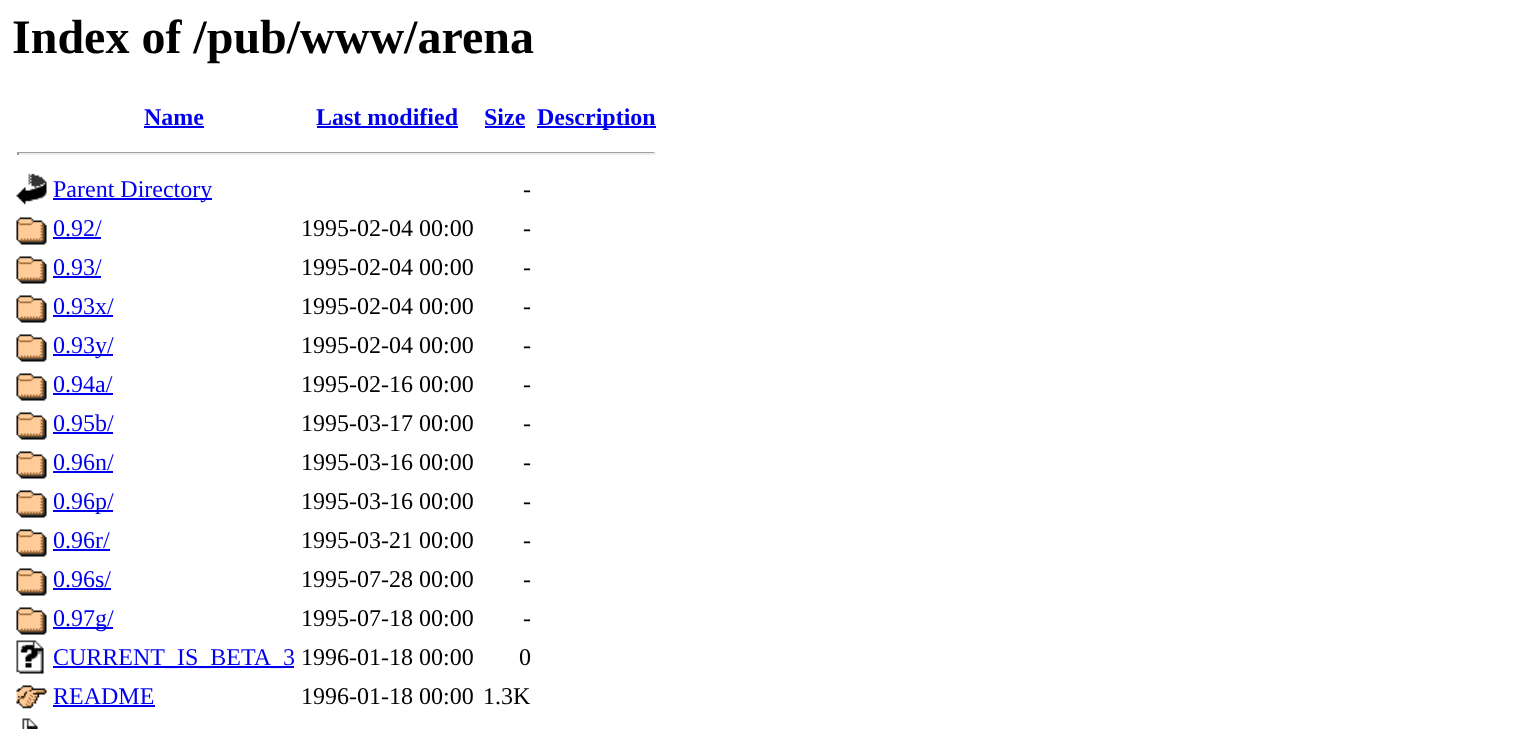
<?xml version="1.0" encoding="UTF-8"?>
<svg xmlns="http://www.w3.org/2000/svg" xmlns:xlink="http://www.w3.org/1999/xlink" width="1539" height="729">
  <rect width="100%" height="100%" fill="#ffffff" />
  <rect x="144" y="126" width="60" height="2" fill="#0000ee" />
  <rect x="317" y="126" width="141" height="2" fill="#0000ee" />
  <rect x="485" y="126" width="40" height="2" fill="#0000ee" />
  <rect x="537" y="126" width="119" height="2" fill="#0000ee" />
  <rect x="17" y="152" width="639" height="1" fill="#9f9f9f" />
  <rect x="654" y="152" width="2" height="3" fill="#eeeeee" />
  <rect x="17" y="153" width="639" height="2" fill="#eeeeee" />
  <rect x="17" y="152" width="2" height="3" fill="#9f9f9f" />
  <image x="16" y="173" width="31" height="32" xlink:href="image1.png" />
  <rect x="53" y="198" width="159" height="2" fill="#0000ee" />
  <image x="16" y="217" width="31" height="28" xlink:href="image2.png" />
  <rect x="53" y="237" width="48" height="2" fill="#0000ee" />
  <image x="16" y="256" width="31" height="28" xlink:href="image2.png" />
  <rect x="53" y="276" width="48" height="2" fill="#0000ee" />
  <image x="16" y="295" width="31" height="28" xlink:href="image2.png" />
  <rect x="53" y="315" width="60" height="2" fill="#0000ee" />
  <image x="16" y="334" width="31" height="28" xlink:href="image2.png" />
  <rect x="53" y="354" width="60" height="2" fill="#0000ee" />
  <image x="16" y="373" width="31" height="28" xlink:href="image2.png" />
  <rect x="53" y="393" width="60" height="2" fill="#0000ee" />
  <image x="16" y="412" width="31" height="28" xlink:href="image2.png" />
  <rect x="53" y="432" width="60" height="2" fill="#0000ee" />
  <image x="16" y="451" width="31" height="28" xlink:href="image2.png" />
  <rect x="53" y="471" width="60" height="2" fill="#0000ee" />
  <image x="16" y="490" width="31" height="28" xlink:href="image2.png" />
  <rect x="53" y="510" width="60" height="2" fill="#0000ee" />
  <image x="16" y="529" width="31" height="28" xlink:href="image2.png" />
  <rect x="53" y="549" width="57" height="2" fill="#0000ee" />
  <image x="16" y="568" width="31" height="28" xlink:href="image2.png" />
  <rect x="53" y="588" width="58" height="2" fill="#0000ee" />
  <image x="16" y="607" width="31" height="28" xlink:href="image2.png" />
  <rect x="53" y="627" width="60" height="2" fill="#0000ee" />
  <image x="16" y="640" width="28" height="34" xlink:href="image3.png" />
  <rect x="53" y="666" width="241" height="2" fill="#0000ee" />
  <image x="16" y="685" width="31" height="24" xlink:href="image4.png" />
  <rect x="53" y="705" width="102" height="2" fill="#0000ee" />
  <image x="22" y="718" width="16" height="11" xlink:href="image5.png" />
  <text x="12" y="53" style="font-family: Liberation Serif; font-size: 48px; font-weight: bold; fill: #000000">Index of /pub/www/arena</text>
  <text x="144" y="125" style="font-family: Liberation Serif; font-size: 24px; font-weight: bold; fill: #0000ee">Name</text>
  <text x="316" y="125" style="font-family: Liberation Serif; font-size: 24px; font-weight: bold; fill: #0000ee">Last modified</text>
  <text x="484" y="125" style="font-family: Liberation Serif; font-size: 24px; font-weight: bold; fill: #0000ee">Size</text>
  <text x="537" y="125" style="font-family: Liberation Serif; font-size: 24px; font-weight: bold; fill: #0000ee">Description</text>
  <text x="53" y="197" style="font-family: Liberation Serif; font-size: 24px; fill: #0000ee">Parent Directory</text>
  <text x="523" y="197" style="font-family: Liberation Serif; font-size: 24px; fill: #000000">-</text>
  <text x="53" y="236" style="font-family: Liberation Serif; font-size: 24px; fill: #0000ee">0.92/</text>
  <text x="301" y="236" style="font-family: Liberation Serif; font-size: 24px; fill: #000000">1995-02-04 00:00</text>
  <text x="523" y="236" style="font-family: Liberation Serif; font-size: 24px; fill: #000000">-</text>
  <text x="53" y="275" style="font-family: Liberation Serif; font-size: 24px; fill: #0000ee">0.93/</text>
  <text x="301" y="275" style="font-family: Liberation Serif; font-size: 24px; fill: #000000">1995-02-04 00:00</text>
  <text x="523" y="275" style="font-family: Liberation Serif; font-size: 24px; fill: #000000">-</text>
  <text x="53" y="314" style="font-family: Liberation Serif; font-size: 24px; fill: #0000ee">0.93x/</text>
  <text x="301" y="314" style="font-family: Liberation Serif; font-size: 24px; fill: #000000">1995-02-04 00:00</text>
  <text x="523" y="314" style="font-family: Liberation Serif; font-size: 24px; fill: #000000">-</text>
  <text x="53" y="353" style="font-family: Liberation Serif; font-size: 24px; fill: #0000ee">0.93y/</text>
  <text x="301" y="353" style="font-family: Liberation Serif; font-size: 24px; fill: #000000">1995-02-04 00:00</text>
  <text x="523" y="353" style="font-family: Liberation Serif; font-size: 24px; fill: #000000">-</text>
  <text x="53" y="392" style="font-family: Liberation Serif; font-size: 24px; fill: #0000ee">0.94a/</text>
  <text x="301" y="392" style="font-family: Liberation Serif; font-size: 24px; fill: #000000">1995-02-16 00:00</text>
  <text x="523" y="392" style="font-family: Liberation Serif; font-size: 24px; fill: #000000">-</text>
  <text x="53" y="431" style="font-family: Liberation Serif; font-size: 24px; fill: #0000ee">0.95b/</text>
  <text x="301" y="431" style="font-family: Liberation Serif; font-size: 24px; fill: #000000">1995-03-17 00:00</text>
  <text x="523" y="431" style="font-family: Liberation Serif; font-size: 24px; fill: #000000">-</text>
  <text x="53" y="470" style="font-family: Liberation Serif; font-size: 24px; fill: #0000ee">0.96n/</text>
  <text x="301" y="470" style="font-family: Liberation Serif; font-size: 24px; fill: #000000">1995-03-16 00:00</text>
  <text x="523" y="470" style="font-family: Liberation Serif; font-size: 24px; fill: #000000">-</text>
  <text x="53" y="509" style="font-family: Liberation Serif; font-size: 24px; fill: #0000ee">0.96p/</text>
  <text x="301" y="509" style="font-family: Liberation Serif; font-size: 24px; fill: #000000">1995-03-16 00:00</text>
  <text x="523" y="509" style="font-family: Liberation Serif; font-size: 24px; fill: #000000">-</text>
  <text x="53" y="548" style="font-family: Liberation Serif; font-size: 24px; fill: #0000ee">0.96r/</text>
  <text x="301" y="548" style="font-family: Liberation Serif; font-size: 24px; fill: #000000">1995-03-21 00:00</text>
  <text x="523" y="548" style="font-family: Liberation Serif; font-size: 24px; fill: #000000">-</text>
  <text x="53" y="587" style="font-family: Liberation Serif; font-size: 24px; fill: #0000ee">0.96s/</text>
  <text x="301" y="587" style="font-family: Liberation Serif; font-size: 24px; fill: #000000">1995-07-28 00:00</text>
  <text x="523" y="587" style="font-family: Liberation Serif; font-size: 24px; fill: #000000">-</text>
  <text x="53" y="626" style="font-family: Liberation Serif; font-size: 24px; fill: #0000ee">0.97g/</text>
  <text x="301" y="626" style="font-family: Liberation Serif; font-size: 24px; fill: #000000">1995-07-18 00:00</text>
  <text x="523" y="626" style="font-family: Liberation Serif; font-size: 24px; fill: #000000">-</text>
  <text x="53" y="665" style="font-family: Liberation Serif; font-size: 24px; fill: #0000ee">CURRENT_IS_BETA_3</text>
  <text x="301" y="665" style="font-family: Liberation Serif; font-size: 24px; fill: #000000">1996-01-18 00:00</text>
  <text x="519" y="665" style="font-family: Liberation Serif; font-size: 24px; fill: #000000">0</text>
  <text x="53" y="704" style="font-family: Liberation Serif; font-size: 24px; fill: #0000ee">README</text>
  <text x="301" y="704" style="font-family: Liberation Serif; font-size: 24px; fill: #000000">1996-01-18 00:00</text>
  <text x="483" y="704" style="font-family: Liberation Serif; font-size: 24px; fill: #000000">1.3K</text>
</svg>
